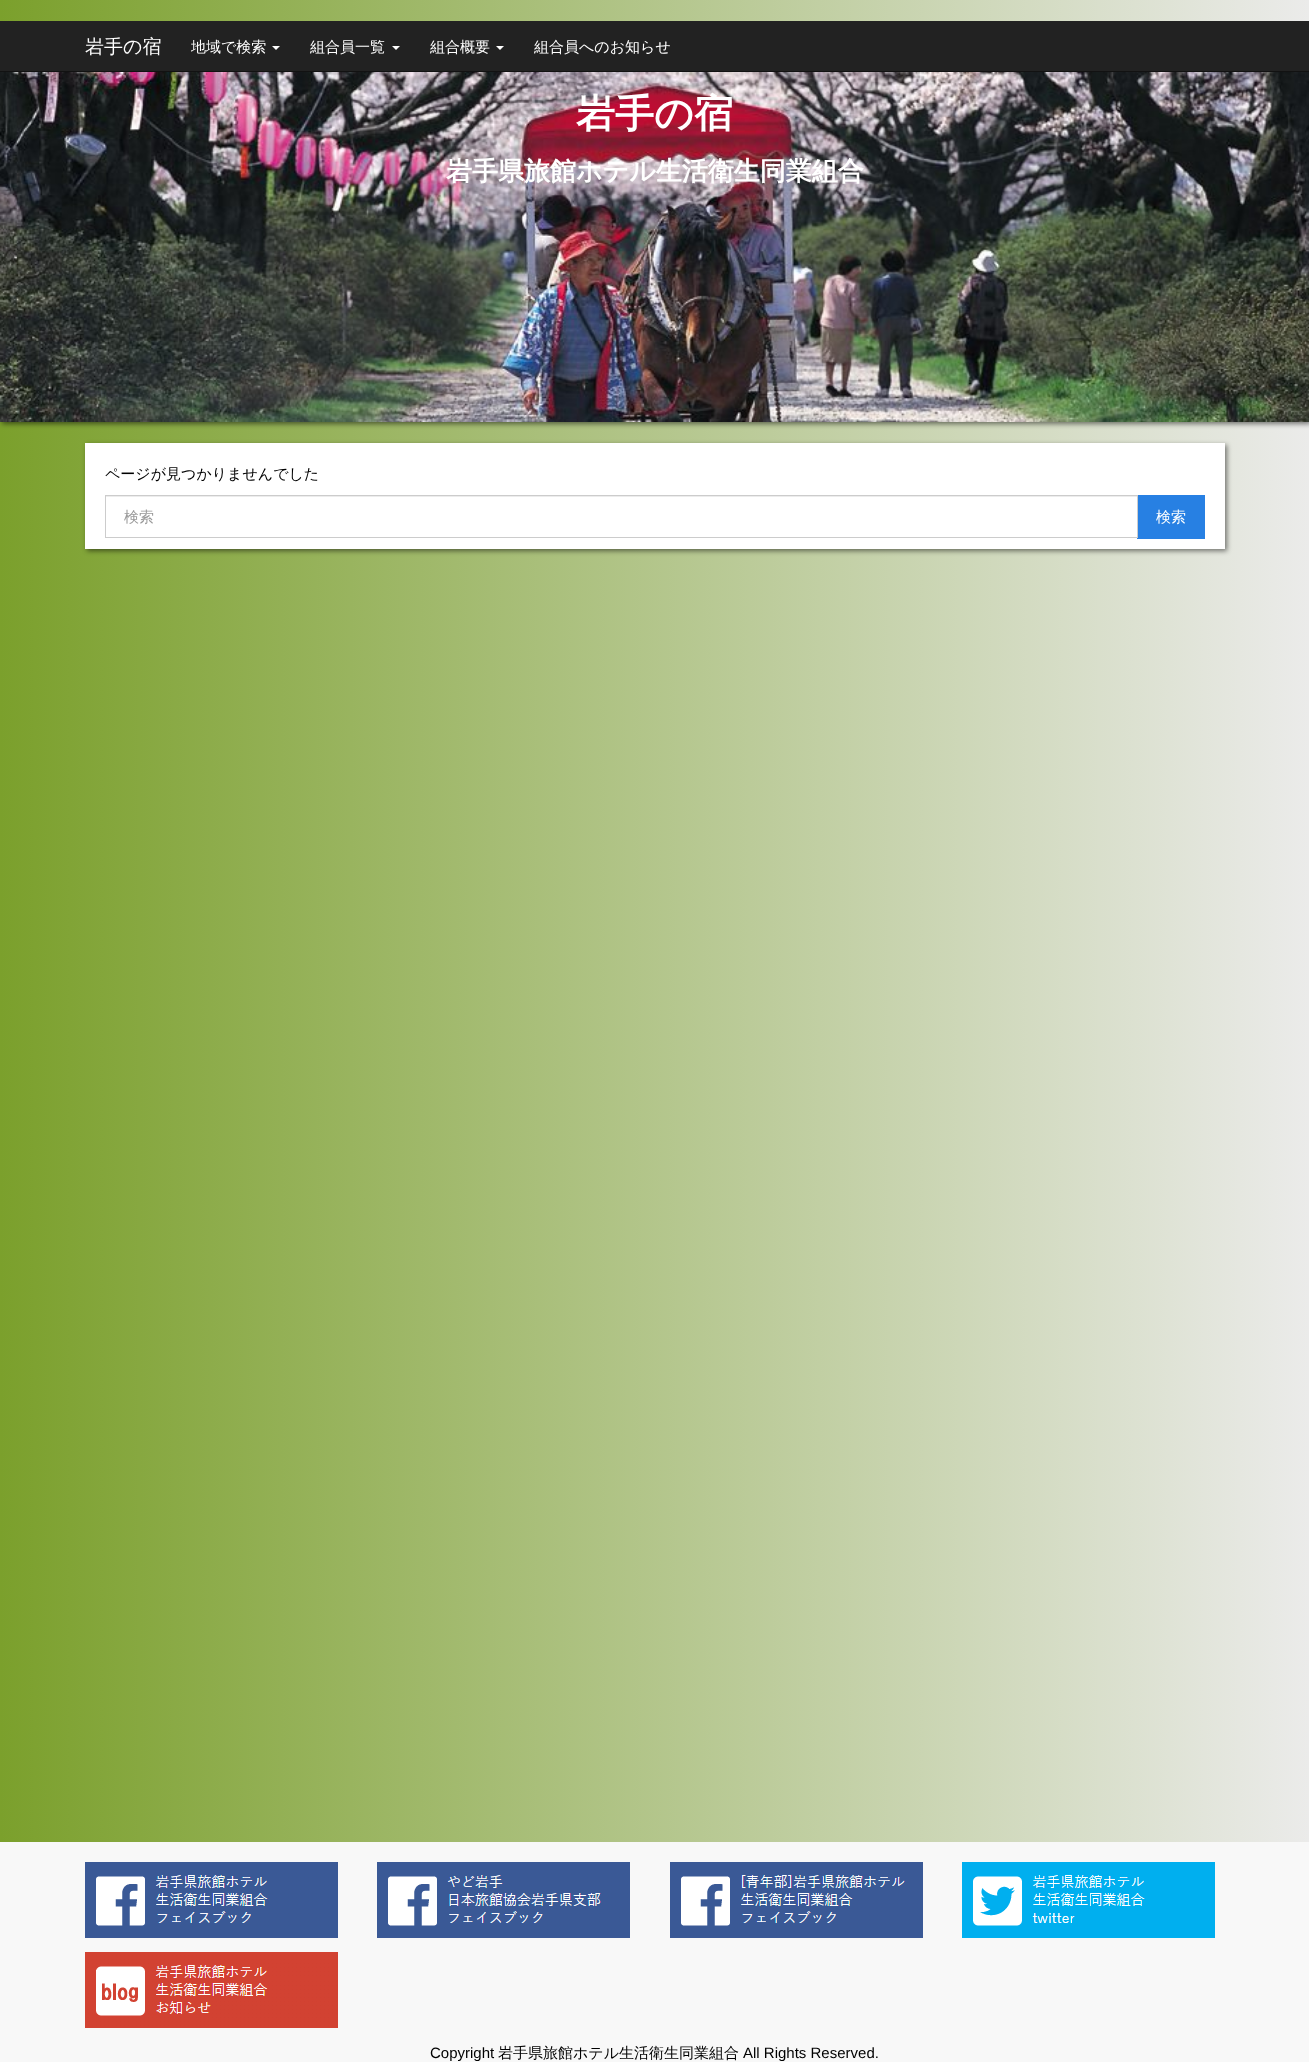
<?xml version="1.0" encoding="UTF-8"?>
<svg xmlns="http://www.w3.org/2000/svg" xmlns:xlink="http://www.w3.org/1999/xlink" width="1309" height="2062">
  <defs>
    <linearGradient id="g1" gradientUnits="userSpaceOnUse" x1="1309" y1="1031" x2="0" y2="1031"><stop offset="0" stop-color="#ebebea" /><stop offset="1" stop-color="#7ba02c" /></linearGradient>
  </defs>
  <rect width="100%" height="100%" fill="#ffffff" />
  <rect width="1309" height="1842" fill="url(#g1)" />
  <rect x="2" y="74" width="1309" height="350" fill="#000000" fill-opacity="0.5" filter="blur(2.5px)" />
  <rect y="21" width="1309" height="50" fill="#222222" />
  <rect y="71" width="1309" height="1" fill="#121212" />
  <path d="M 272 46 h 8 l -4 4 z" fill="#ffffff" />
  <path d="M 392 46 h 8 l -4 4 z" fill="#ffffff" />
  <path d="M 496 46 h 8 l -4 4 z" fill="#ffffff" />
  <image x="0" y="72" width="1309" height="350" xlink:href="image1.png" />
  <rect x="87" y="445" width="1140" height="106" fill="#000000" fill-opacity="0.5" filter="blur(2.5px)" />
  <rect x="85" y="443" width="1140" height="106" fill="#ffffff" />
  <rect x="106" y="496" width="1031" height="1" fill="#ececec" />
  <rect x="1137" y="495" width="68" height="44" fill="#2780e3" />
  <rect x="105.5" y="495.5" width="1032" height="42" fill="none" stroke="#cccccc" />
  <rect y="1842" width="1309" height="220" fill="#f8f8f8" />
  <image x="85" y="1862" width="253" height="76" xlink:href="image2.png" />
  <image x="377" y="1862" width="253" height="76" xlink:href="image3.png" />
  <image x="670" y="1862" width="253" height="76" xlink:href="image4.png" />
  <image x="962" y="1862" width="253" height="76" xlink:href="image5.png" />
  <image x="85" y="1952" width="253" height="76" xlink:href="image6.png" />
  <text x="85" y="53" style="font-family: WenQuanYi Zen Hei; font-size: 19px; font-weight: 500; fill: #ffffff">岩手の宿</text>
  <text x="191" y="52" style="font-family: WenQuanYi Zen Hei; font-size: 15px; font-weight: 500; fill: #ffffff">地域で検索</text>
  <text x="310" y="52" style="font-family: WenQuanYi Zen Hei; font-size: 15px; font-weight: 500; fill: #ffffff">組合員一覧</text>
  <text x="430" y="52" style="font-family: WenQuanYi Zen Hei; font-size: 15px; font-weight: 500; fill: #ffffff">組合概要</text>
  <text x="534" y="52" style="font-family: WenQuanYi Zen Hei; font-size: 15px; font-weight: 500; fill: #ffffff">組合員へのお知らせ</text>
  <text x="576" y="127" style="font-family: WenQuanYi Zen Hei; font-size: 39px; font-weight: bold; fill: #ffffff">岩手の宿</text>
  <text x="446" y="180" style="font-family: WenQuanYi Zen Hei; font-size: 26px; font-weight: bold; fill: #ffffff">岩手県旅館ホテル生活衛生同業組合</text>
  <text x="105" y="479" style="font-family: WenQuanYi Zen Hei; font-size: 15px; font-weight: 500; fill: #000000">ページが見つかりませんでした</text>
  <text x="124" y="522" style="font-family: WenQuanYi Zen Hei; font-size: 15px; font-weight: 500; fill: #999999">検索</text>
  <text x="1156" y="522" style="font-family: WenQuanYi Zen Hei; font-size: 15px; font-weight: 500; fill: #ffffff">検索</text>
  <text x="430" y="2058" style="font-family: Liberation Sans; font-size: 15px; fill: #000000">Copyright</text>
  <text x="498" y="2058" style="font-family: WenQuanYi Zen Hei; font-size: 15px; font-weight: 500; fill: #000000">岩手県旅館ホテル生活衛生同業組合</text>
  <text x="743" y="2058" style="font-family: Liberation Sans; font-size: 15px; fill: #000000">All Rights Reserved.</text>
</svg>
